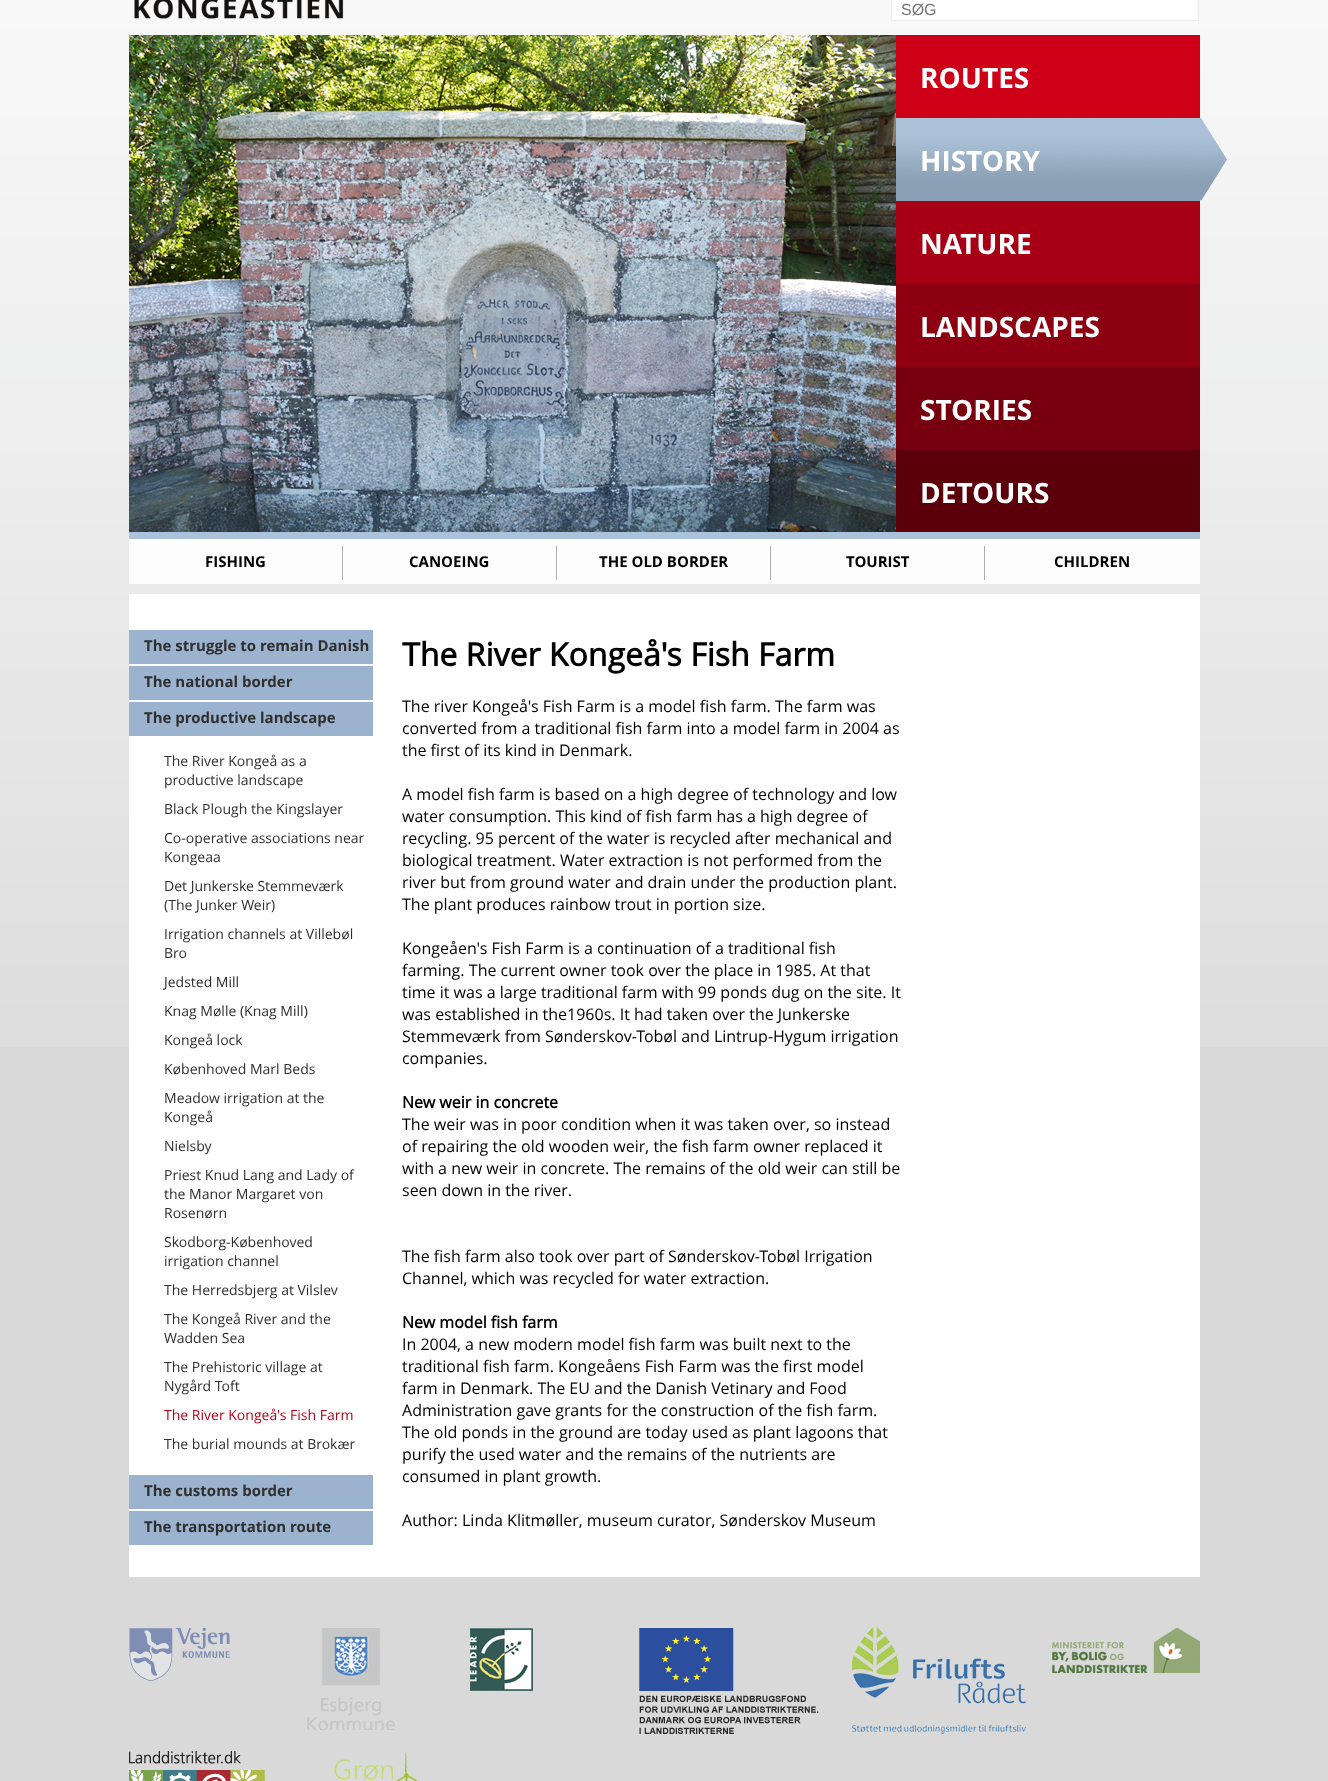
<?xml version="1.0" encoding="UTF-8"?>
<svg xmlns="http://www.w3.org/2000/svg" xmlns:xlink="http://www.w3.org/1999/xlink" width="1328" height="1781">
  <rect width="100%" height="100%" fill="#d9d9d9" />
  <image x="0" y="0" width="1328" height="1047" xlink:href="image1.png" />
  <image x="134" y="0" width="210" height="19" xlink:href="image2.png" />
  <image x="891" y="0" width="308" height="21" xlink:href="image3.png" />
  <image x="129" y="35" width="767" height="497" xlink:href="image4.png" />
  <rect x="896" y="35" width="304" height="83" fill="#cd0018" />
  <image x="896" y="118" width="310" height="83" xlink:href="image5.png" />
  <image x="1200" y="118" width="27" height="82" xlink:href="image6.png" />
  <rect x="896" y="201" width="304" height="83" fill="#a70014" />
  <rect x="896" y="284" width="304" height="83" fill="#8d0011" />
  <rect x="896" y="367" width="304" height="83" fill="#77000e" />
  <rect x="896" y="450" width="304" height="82" fill="#5b000b" />
  <rect x="129" y="532" width="1071" height="7" fill="#abc3da" />
  <rect x="129" y="539" width="1071" height="45" fill="#fdfdfd" />
  <rect x="342" y="546" width="1" height="34" fill="#aeaeae" />
  <rect x="556" y="546" width="1" height="34" fill="#aeaeae" />
  <rect x="770" y="546" width="1" height="34" fill="#aeaeae" />
  <rect x="984" y="546" width="1" height="34" fill="#aeaeae" />
  <rect x="129" y="594" width="1071" height="983" fill="#ffffff" />
  <rect x="129" y="630" width="244" height="34" fill="#9bb3ce" />
  <rect x="129" y="666" width="244" height="34" fill="#9bb3ce" />
  <rect x="129" y="702" width="244" height="34" fill="#9bb3ce" />
  <rect x="129" y="1475" width="244" height="34" fill="#9bb3ce" />
  <rect x="129" y="1511" width="244" height="34" fill="#9bb3ce" />
  <image x="129" y="1626" width="1071" height="155" xlink:href="image7.png" />
  <text x="901" y="15" style="font-family: Liberation Sans; font-size: 16px; fill: #757575">SØG</text>
  <text x="920" y="88" style="font-family: Open Sans; font-size: 28px; font-weight: bold; fill: #ffffff">ROUTES</text>
  <text x="920" y="171" style="font-family: Open Sans; font-size: 28px; font-weight: bold; fill: #ffffff">HISTORY</text>
  <text x="920" y="254" style="font-family: Open Sans; font-size: 28px; font-weight: bold; fill: #ffffff">NATURE</text>
  <text x="920" y="337" style="font-family: Open Sans; font-size: 28px; font-weight: bold; fill: #ffffff">LANDSCAPES</text>
  <text x="920" y="420" style="font-family: Open Sans; font-size: 28px; font-weight: bold; fill: #ffffff">STORIES</text>
  <text x="920" y="503" style="font-family: Open Sans; font-size: 28px; font-weight: bold; fill: #ffffff">DETOURS</text>
  <text x="205" y="567" style="font-family: Open Sans; font-size: 15px; font-weight: bold; fill: #000000">FISHING</text>
  <text x="409" y="567" style="font-family: Open Sans; font-size: 15px; font-weight: bold; fill: #000000">CANOEING</text>
  <text x="599" y="567" style="font-family: Open Sans; font-size: 15px; font-weight: bold; fill: #000000">THE OLD BORDER</text>
  <text x="846" y="567" style="font-family: Open Sans; font-size: 15px; font-weight: bold; fill: #000000">TOURIST</text>
  <text x="1054" y="567" style="font-family: Open Sans; font-size: 15px; font-weight: bold; fill: #000000">CHILDREN</text>
  <text x="144" y="651" style="font-family: Open Sans; font-size: 15px; font-weight: bold; fill: #2f2f2f">The struggle to remain Danish</text>
  <text x="144" y="687" style="font-family: Open Sans; font-size: 15px; font-weight: bold; fill: #2f2f2f">The national border</text>
  <text x="144" y="723" style="font-family: Open Sans; font-size: 15px; font-weight: bold; fill: #2f2f2f">The productive landscape</text>
  <text x="164" y="766" style="font-family: Open Sans; font-size: 14px; fill: #2f2f2f">The River Kongeå as a</text>
  <text x="164" y="785" style="font-family: Open Sans; font-size: 14px; fill: #2f2f2f">productive landscape</text>
  <text x="164" y="814" style="font-family: Open Sans; font-size: 14px; fill: #2f2f2f">Black Plough the Kingslayer</text>
  <text x="164" y="843" style="font-family: Open Sans; font-size: 14px; fill: #2f2f2f">Co-operative associations near</text>
  <text x="164" y="862" style="font-family: Open Sans; font-size: 14px; fill: #2f2f2f">Kongeaa</text>
  <text x="164" y="891" style="font-family: Open Sans; font-size: 14px; fill: #2f2f2f">Det Junkerske Stemmeværk</text>
  <text x="164" y="910" style="font-family: Open Sans; font-size: 14px; fill: #2f2f2f">(The Junker Weir)</text>
  <text x="164" y="939" style="font-family: Open Sans; font-size: 14px; fill: #2f2f2f">Irrigation channels at Villebøl</text>
  <text x="164" y="958" style="font-family: Open Sans; font-size: 14px; fill: #2f2f2f">Bro</text>
  <text x="164" y="987" style="font-family: Open Sans; font-size: 14px; fill: #2f2f2f">Jedsted Mill</text>
  <text x="164" y="1016" style="font-family: Open Sans; font-size: 14px; fill: #2f2f2f">Knag Mølle (Knag Mill)</text>
  <text x="164" y="1045" style="font-family: Open Sans; font-size: 14px; fill: #2f2f2f">Kongeå lock</text>
  <text x="164" y="1074" style="font-family: Open Sans; font-size: 14px; fill: #2f2f2f">Københoved Marl Beds</text>
  <text x="164" y="1103" style="font-family: Open Sans; font-size: 14px; fill: #2f2f2f">Meadow irrigation at the</text>
  <text x="164" y="1122" style="font-family: Open Sans; font-size: 14px; fill: #2f2f2f">Kongeå</text>
  <text x="164" y="1151" style="font-family: Open Sans; font-size: 14px; fill: #2f2f2f">Nielsby</text>
  <text x="164" y="1180" style="font-family: Open Sans; font-size: 14px; fill: #2f2f2f">Priest Knud Lang and Lady of</text>
  <text x="164" y="1199" style="font-family: Open Sans; font-size: 14px; fill: #2f2f2f">the Manor Margaret von</text>
  <text x="164" y="1218" style="font-family: Open Sans; font-size: 14px; fill: #2f2f2f">Rosenørn</text>
  <text x="164" y="1247" style="font-family: Open Sans; font-size: 14px; fill: #2f2f2f">Skodborg-Københoved</text>
  <text x="164" y="1266" style="font-family: Open Sans; font-size: 14px; fill: #2f2f2f">irrigation channel</text>
  <text x="164" y="1295" style="font-family: Open Sans; font-size: 14px; fill: #2f2f2f">The Herredsbjerg at Vilslev</text>
  <text x="164" y="1324" style="font-family: Open Sans; font-size: 14px; fill: #2f2f2f">The Kongeå River and the</text>
  <text x="164" y="1343" style="font-family: Open Sans; font-size: 14px; fill: #2f2f2f">Wadden Sea</text>
  <text x="164" y="1372" style="font-family: Open Sans; font-size: 14px; fill: #2f2f2f">The Prehistoric village at</text>
  <text x="164" y="1391" style="font-family: Open Sans; font-size: 14px; fill: #2f2f2f">Nygård Toft</text>
  <text x="164" y="1420" style="font-family: Open Sans; font-size: 14px; fill: #b80116">The River Kongeå's Fish Farm</text>
  <text x="164" y="1449" style="font-family: Open Sans; font-size: 14px; fill: #2f2f2f">The burial mounds at Brokær</text>
  <text x="144" y="1496" style="font-family: Open Sans; font-size: 15px; font-weight: bold; fill: #2f2f2f">The customs border</text>
  <text x="144" y="1532" style="font-family: Open Sans; font-size: 15px; font-weight: bold; fill: #2f2f2f">The transportation route</text>
  <text x="402" y="666" style="font-family: 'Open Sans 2'; font-size: 32px; font-weight: bold; fill: #000000">The River Kongeå's Fish Farm</text>
  <text x="402" y="712" style="font-family: Open Sans; font-size: 16px; fill: #000000">The river Kongeå's Fish Farm is a model fish farm. The farm was</text>
  <text x="402" y="734" style="font-family: Open Sans; font-size: 16px; fill: #000000">converted from a traditional fish farm into a model farm in 2004 as</text>
  <text x="402" y="756" style="font-family: Open Sans; font-size: 16px; fill: #000000">the first of its kind in Denmark.</text>
  <text x="402" y="800" style="font-family: Open Sans; font-size: 16px; fill: #000000">A model fish farm is based on a high degree of technology and low</text>
  <text x="402" y="822" style="font-family: Open Sans; font-size: 16px; fill: #000000">water consumption. This kind of fish farm has a high degree of</text>
  <text x="402" y="844" style="font-family: Open Sans; font-size: 16px; fill: #000000">recycling. 95 percent of the water is recycled after mechanical and</text>
  <text x="402" y="866" style="font-family: Open Sans; font-size: 16px; fill: #000000">biological treatment. Water extraction is not performed from the</text>
  <text x="402" y="888" style="font-family: Open Sans; font-size: 16px; fill: #000000">river but from ground water and drain under the production plant.</text>
  <text x="402" y="910" style="font-family: Open Sans; font-size: 16px; fill: #000000">The plant produces rainbow trout in portion size.</text>
  <text x="402" y="954" style="font-family: Open Sans; font-size: 16px; fill: #000000">Kongeåen's Fish Farm is a continuation of a traditional fish</text>
  <text x="402" y="976" style="font-family: Open Sans; font-size: 16px; fill: #000000">farming. The current owner took over the place in 1985. At that</text>
  <text x="402" y="998" style="font-family: Open Sans; font-size: 16px; fill: #000000">time it was a large traditional farm with 99 ponds dug on the site. It</text>
  <text x="402" y="1020" style="font-family: Open Sans; font-size: 16px; fill: #000000">was established in the1960s. It had taken over the Junkerske</text>
  <text x="402" y="1042" style="font-family: Open Sans; font-size: 16px; fill: #000000">Stemmeværk from Sønderskov-Tobøl and Lintrup-Hygum irrigation</text>
  <text x="402" y="1064" style="font-family: Open Sans; font-size: 16px; fill: #000000">companies.</text>
  <text x="402" y="1108" style="font-family: 'Open Sans 2'; font-size: 16px; font-weight: bold; fill: #000000">New weir in concrete</text>
  <text x="402" y="1130" style="font-family: Open Sans; font-size: 16px; fill: #000000">The weir was in poor condition when it was taken over, so instead</text>
  <text x="402" y="1152" style="font-family: Open Sans; font-size: 16px; fill: #000000">of repairing the old wooden weir, the fish farm owner replaced it</text>
  <text x="402" y="1174" style="font-family: Open Sans; font-size: 16px; fill: #000000">with a new weir in concrete. The remains of the old weir can still be</text>
  <text x="402" y="1196" style="font-family: Open Sans; font-size: 16px; fill: #000000">seen down in the river.</text>
  <text x="402" y="1262" style="font-family: Open Sans; font-size: 16px; fill: #000000">The fish farm also took over part of Sønderskov-Tobøl Irrigation</text>
  <text x="402" y="1284" style="font-family: Open Sans; font-size: 16px; fill: #000000">Channel, which was recycled for water extraction.</text>
  <text x="402" y="1328" style="font-family: 'Open Sans 2'; font-size: 16px; font-weight: bold; fill: #000000">New model fish farm</text>
  <text x="402" y="1350" style="font-family: Open Sans; font-size: 16px; fill: #000000">In 2004, a new modern model fish farm was built next to the</text>
  <text x="402" y="1372" style="font-family: Open Sans; font-size: 16px; fill: #000000">traditional fish farm. Kongeåens Fish Farm was the first model</text>
  <text x="402" y="1394" style="font-family: Open Sans; font-size: 16px; fill: #000000">farm in Denmark. The EU and the Danish Vetinary and Food</text>
  <text x="402" y="1416" style="font-family: Open Sans; font-size: 16px; fill: #000000">Administration gave grants for the construction of the fish farm.</text>
  <text x="402" y="1438" style="font-family: Open Sans; font-size: 16px; fill: #000000">The old ponds in the ground are today used as plant lagoons that</text>
  <text x="402" y="1460" style="font-family: Open Sans; font-size: 16px; fill: #000000">purify the used water and the remains of the nutrients are</text>
  <text x="402" y="1482" style="font-family: Open Sans; font-size: 16px; fill: #000000">consumed in plant growth.</text>
  <text x="402" y="1526" style="font-family: Open Sans; font-size: 16px; fill: #000000">Author: Linda Klitmøller, museum curator, Sønderskov Museum</text>
</svg>
